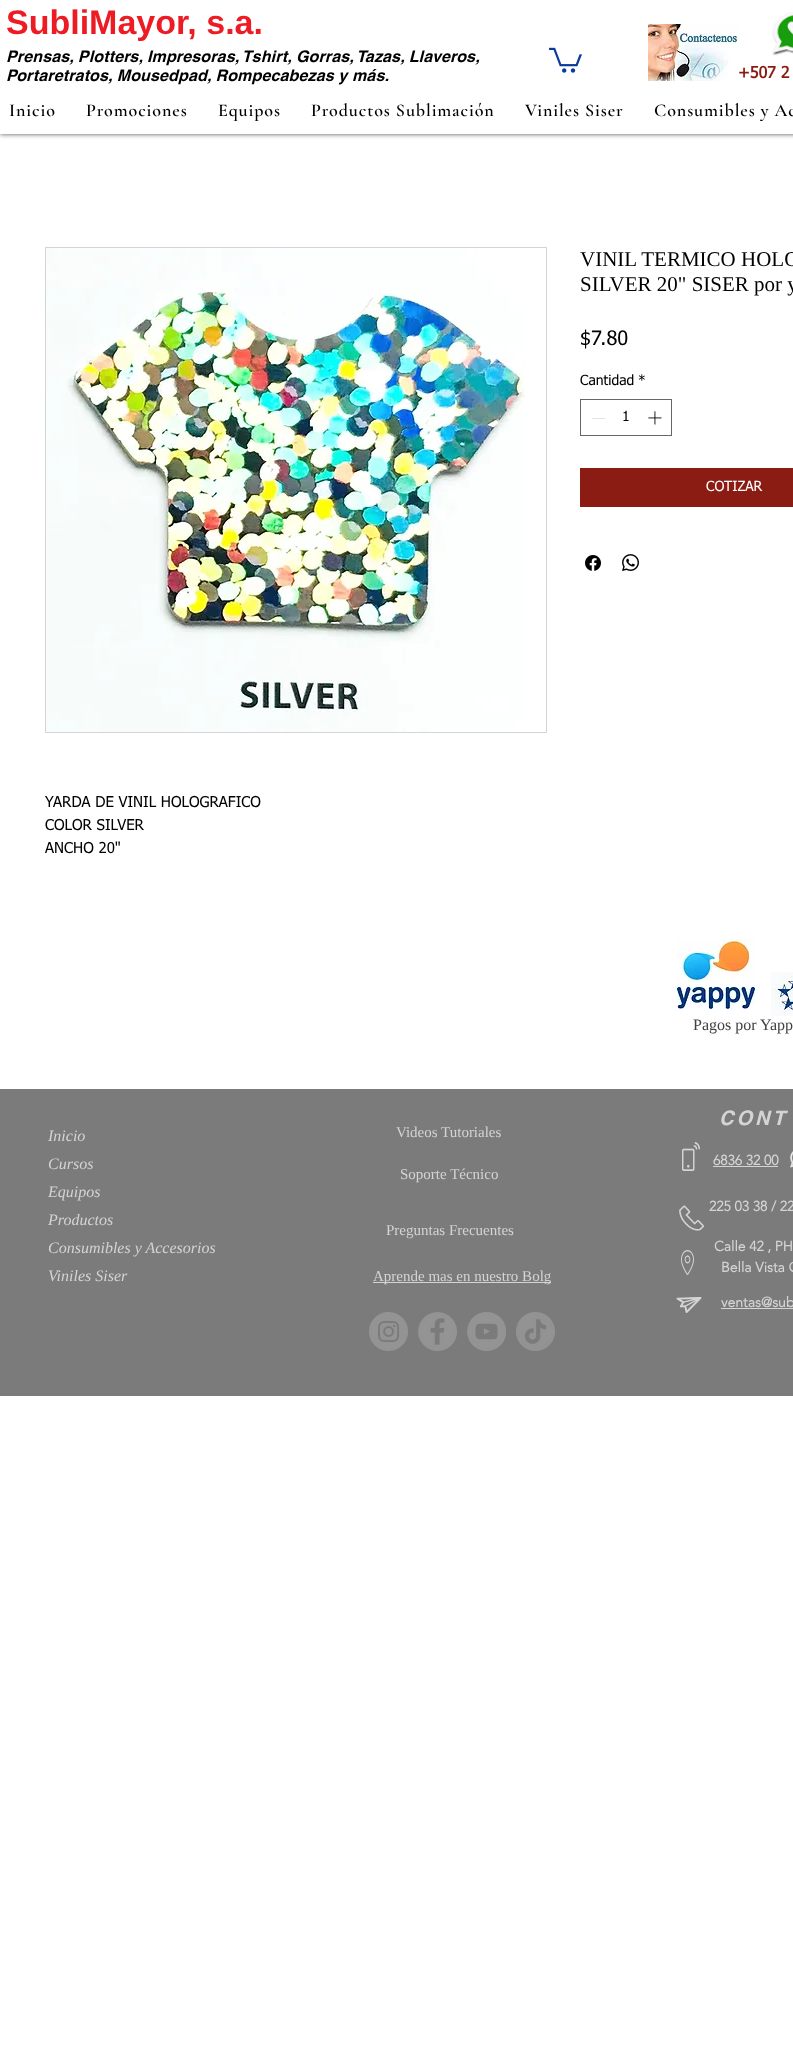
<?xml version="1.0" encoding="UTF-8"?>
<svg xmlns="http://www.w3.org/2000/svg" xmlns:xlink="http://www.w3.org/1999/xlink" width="793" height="2056">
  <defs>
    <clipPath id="clip1"><rect x="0" y="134" width="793" height="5" /></clipPath>
  </defs>
  <rect width="100%" height="100%" fill="#ffffff" />
  <g clip-path="url(#clip1)">
    <rect width="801" height="134" fill="#000000" fill-opacity="0.7" filter="blur(2.5px)" />
  </g>
  <image x="549" y="47" width="33" height="26" xlink:href="image1.png" />
  <image x="648" y="24" width="90" height="57" xlink:href="image2.png" />
  <image x="772" y="12" width="21" height="44" xlink:href="image3.png" />
  <rect x="580.5" y="399.5" width="91" height="36" fill="none" stroke="#666666" />
  <rect x="592" y="418" width="13" height="1" fill="#e3e3e3" />
  <image x="648" y="411" width="14" height="14" xlink:href="image4.png" />
  <rect x="580" y="468" width="213" height="39" fill="#8b1c14" />
  <image x="585" y="555" width="16" height="16" xlink:href="image5.png" />
  <image x="622" y="554" width="17" height="17" xlink:href="image6.png" />
  <rect x="45.5" y="247.5" width="501" height="485" fill="none" stroke="#d4d4d4" />
  <image x="46" y="248" width="479" height="484" xlink:href="image7.png" />
  <image x="677" y="939" width="78" height="70" xlink:href="image8.png" />
  <image x="771" y="972" width="22" height="44" xlink:href="image9.png" />
  <rect y="1089" width="793" height="307" fill="#7b7b7b" />
  <image x="682" y="1142" width="18" height="29" xlink:href="image10.png" />
  <rect x="713" y="1166" width="65" height="1" fill="#d4d4d4" />
  <image x="790" y="1151" width="3" height="17" xlink:href="image11.png" />
  <image x="679" y="1205" width="25" height="26" xlink:href="image12.png" />
  <image x="681" y="1250" width="13" height="25" xlink:href="image13.png" />
  <image x="676" y="1297" width="26" height="16" xlink:href="image14.png" />
  <rect x="721" y="1308" width="72" height="1" fill="#d4d4d4" />
  <rect x="373" y="1282" width="178" height="1" fill="#d4d4d4" />
  <image x="369" y="1312" width="39" height="39" xlink:href="image15.png" />
  <image x="418" y="1312" width="39" height="39" xlink:href="image16.png" />
  <image x="467" y="1312" width="39" height="39" xlink:href="image17.png" />
  <image x="516" y="1312" width="39" height="39" xlink:href="image18.png" />
  <text x="6" y="34" style="font-family: Liberation Sans; font-size: 34px; font-weight: bold; fill: #ed1c24">SubliMayor, s.a.</text>
  <text x="6" y="62" style="font-family: helvetica; font-size: 16px; font-weight: bold; font-style: italic; letter-spacing: 0.15px; fill: #000000">Prensas, Plotters, Impresoras, Tshirt, Gorras, Tazas, Llaveros,</text>
  <text x="6" y="81" style="font-family: helvetica; font-size: 16px; font-weight: bold; font-style: italic; letter-spacing: 0.15px; fill: #000000">Portaretratos, Mousedpad, Rompecabezas y más.</text>
  <text x="738" y="78" style="font-family: tahoma; font-size: 16px; font-weight: bold; fill: #8b1c14">+507 2</text>
  <text x="9" y="116" style="font-family: Cormorant Garamond; font-size: 18px; font-weight: 600; letter-spacing: 0.9px; fill: #000000">Inicio</text>
  <text x="86" y="116" style="font-family: Cormorant Garamond; font-size: 18px; font-weight: 600; letter-spacing: 0.9px; fill: #000000">Promociones</text>
  <text x="218" y="116" style="font-family: Cormorant Garamond; font-size: 18px; font-weight: 600; letter-spacing: 0.9px; fill: #000000">Equipos</text>
  <text x="311" y="116" style="font-family: Cormorant Garamond; font-size: 18px; font-weight: 600; letter-spacing: 0.9px; fill: #000000">Productos Sublimación</text>
  <text x="525" y="116" style="font-family: Cormorant Garamond; font-size: 18px; font-weight: 600; letter-spacing: 0.9px; fill: #000000">Viniles Siser</text>
  <text x="654" y="116" style="font-family: Cormorant Garamond; font-size: 18px; font-weight: 600; letter-spacing: 0.9px; fill: #000000">Consumibles y Ac</text>
  <text x="580" y="266" style="font-family: Liberation Serif; font-size: 21px; fill: #000000">VINIL TERMICO HOLO</text>
  <text x="580" y="291" style="font-family: Liberation Serif; font-size: 21px; fill: #000000">SILVER 20" SISER por y</text>
  <text x="580" y="345" style="font-family: tahoma; font-size: 20px; fill: #000000">$7.80</text>
  <text x="580" y="385" style="font-family: tahoma; font-size: 14px; fill: #000000">Cantidad</text>
  <text x="638" y="385" style="font-family: tahoma; font-size: 14px; fill: #000000">*</text>
  <text x="622" y="421" style="font-family: tahoma; font-size: 14px; fill: #000000">1</text>
  <text x="706" y="491" style="font-family: tahoma; font-size: 14px; fill: #ffffff">COTIZAR</text>
  <text x="45" y="807" style="font-family: tahoma; font-size: 15px; fill: #000000">YARDA DE VINIL HOLOGRAFICO</text>
  <text x="45" y="830" style="font-family: tahoma; font-size: 15px; fill: #000000">COLOR SILVER</text>
  <text x="45" y="853" style="font-family: tahoma; font-size: 15px; fill: #000000">ANCHO 20"</text>
  <text x="693" y="1030" style="font-family: Liberation Serif; font-size: 16px; fill: #404040">Pagos por Yapp</text>
  <text x="48" y="1141" style="font-family: Liberation Serif; font-size: 16px; font-style: italic; fill: #d4d4d4">Inicio</text>
  <text x="48" y="1169" style="font-family: Liberation Serif; font-size: 16px; font-style: italic; fill: #d4d4d4">Cursos</text>
  <text x="48" y="1197" style="font-family: Liberation Serif; font-size: 16px; font-style: italic; fill: #d4d4d4">Equipos</text>
  <text x="48" y="1225" style="font-family: Liberation Serif; font-size: 16px; font-style: italic; fill: #d4d4d4">Productos</text>
  <text x="48" y="1253" style="font-family: Liberation Serif; font-size: 16px; font-style: italic; fill: #d4d4d4">Consumibles y Accesorios</text>
  <text x="48" y="1281" style="font-family: Liberation Serif; font-size: 16px; font-style: italic; fill: #d4d4d4">Viniles Siser</text>
  <text x="396" y="1137" style="font-family: Liberation Serif; font-size: 15px; fill: #d4d4d4">Videos Tutoriales</text>
  <text x="719" y="1125" style="font-family: helvetica; font-size: 20px; font-weight: bold; font-style: italic; letter-spacing: 3px; fill: #d4d4d4">CONT</text>
  <text x="713" y="1165" style="font-family: 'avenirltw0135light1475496'; font-size: 14px; font-weight: bold; fill: #d4d4d4">6836 32 00</text>
  <text x="709" y="1211" style="font-family: 'avenirltw0135light1475496'; font-size: 14px; font-weight: bold; fill: #d4d4d4">225 03 38 / 22</text>
  <text x="714" y="1251" style="font-family: 'avenirltw0135light1475496'; font-size: 14px; font-weight: bold; fill: #d4d4d4">Calle 42 , PH</text>
  <text x="721" y="1272" style="font-family: 'avenirltw0135light1475496'; font-size: 14px; font-weight: bold; fill: #d4d4d4">Bella Vista C</text>
  <text x="721" y="1307" style="font-family: 'avenirltw0135light1475496'; font-size: 14px; font-weight: bold; fill: #d4d4d4">ventas@sub</text>
  <text x="400" y="1179" style="font-family: Liberation Serif; font-size: 15px; fill: #d4d4d4">Soporte Técnico</text>
  <text x="386" y="1235" style="font-family: Liberation Serif; font-size: 15px; fill: #d4d4d4">Preguntas Frecuentes</text>
  <text x="373" y="1281" style="font-family: Liberation Serif; font-size: 15px; fill: #d4d4d4">Aprende mas en nuestro Bolg</text>
</svg>
